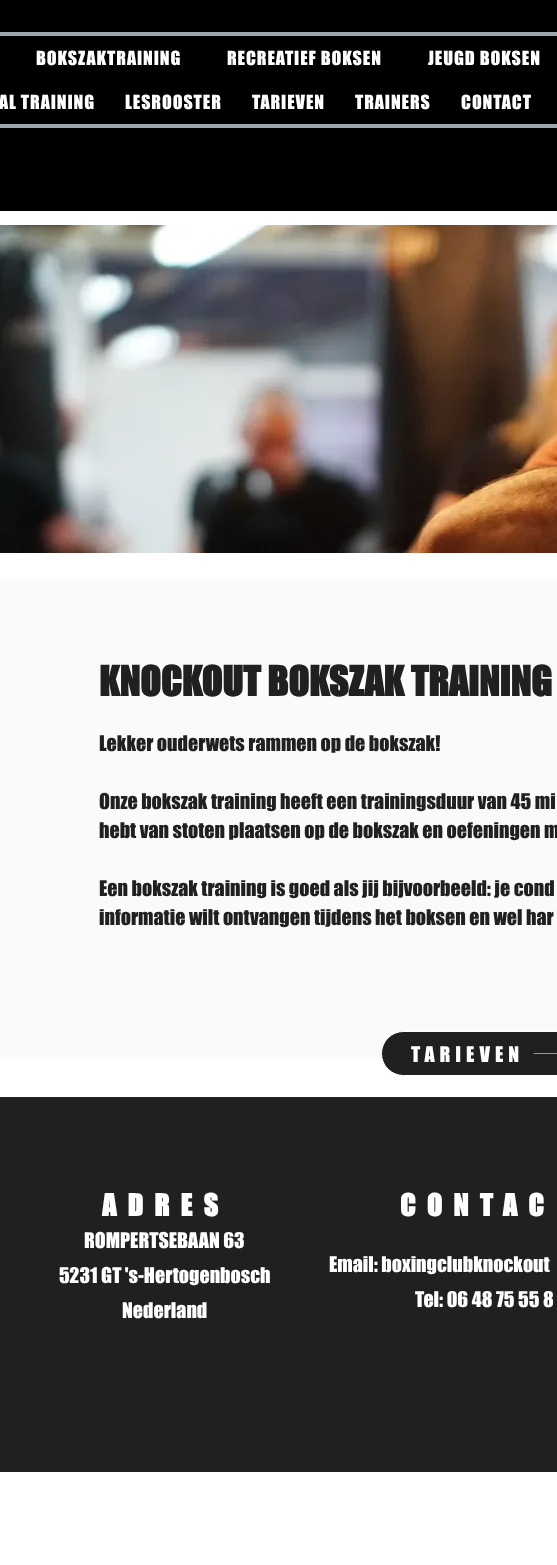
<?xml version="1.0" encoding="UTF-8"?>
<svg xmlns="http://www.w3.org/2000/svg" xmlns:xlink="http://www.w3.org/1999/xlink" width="557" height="1565">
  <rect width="100%" height="100%" fill="#ffffff" />
  <rect width="557" height="211" fill="#000000" />
  <rect x="-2" y="34" width="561" height="92" fill="none" stroke="#9fa6ad" stroke-width="4" />
  <image x="0" y="225" width="557" height="328" xlink:href="image1.png" />
  <rect y="579" width="557" height="480" fill="#fafafa" />
  <rect x="381.5" y="1031.5" width="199" height="44" rx="22" fill="#202020" stroke="#ffffff" />
  <image x="533" y="1053" width="24" height="1" xlink:href="image2.png" />
  <rect y="1097" width="557" height="375" fill="#202020" />
  <text x="36" y="65" style="font-family: 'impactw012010'; font-size: 18px; letter-spacing: 0.9px; fill: #ffffff">BOKSZAKTRAINING</text>
  <text x="227" y="65" style="font-family: 'impactw012010'; font-size: 18px; letter-spacing: 0.9px; fill: #ffffff">RECREATIEF BOKSEN</text>
  <text x="428" y="65" style="font-family: 'impactw012010'; font-size: 18px; letter-spacing: 0.9px; fill: #ffffff">JEUGD BOKSEN</text>
  <text x="-1" y="109" style="font-family: 'impactw012010'; font-size: 18px; letter-spacing: 0.9px; fill: #ffffff">AL TRAINING</text>
  <text x="125" y="109" style="font-family: 'impactw012010'; font-size: 18px; letter-spacing: 0.9px; fill: #ffffff">LESROOSTER</text>
  <text x="252" y="109" style="font-family: 'impactw012010'; font-size: 18px; letter-spacing: 0.9px; fill: #ffffff">TARIEVEN</text>
  <text x="355" y="109" style="font-family: 'impactw012010'; font-size: 18px; letter-spacing: 0.9px; fill: #ffffff">TRAINERS</text>
  <text x="461" y="109" style="font-family: 'impactw012010'; font-size: 18px; letter-spacing: 0.9px; fill: #ffffff">CONTACT</text>
  <text x="99" y="696" style="font-family: 'impactw012010'; font-size: 38px; font-weight: bold; fill: #202020">KNOCKOUT BOKSZAK TRAINING</text>
  <text x="99" y="751" style="font-family: 'impactw012010'; font-size: 20px; fill: #202020">Lekker ouderwets rammen op de bokszak!</text>
  <text x="99" y="809" style="font-family: 'impactw012010'; font-size: 20px; fill: #202020">Onze bokszak training heeft een trainingsduur van 45 mi</text>
  <text x="99" y="838" style="font-family: 'impactw012010'; font-size: 20px; fill: #202020">hebt van stoten plaatsen op de bokszak en oefeningen m</text>
  <text x="99" y="896" style="font-family: 'impactw012010'; font-size: 20px; fill: #202020">Een bokszak training is goed als jij bijvoorbeeld: je cond</text>
  <text x="99" y="925" style="font-family: 'impactw012010'; font-size: 20px; fill: #202020">informatie wilt ontvangen tijdens het boksen en wel har</text>
  <text x="411" y="1062" style="font-family: 'impactw012010'; font-size: 20px; letter-spacing: 5px; fill: #ffffff">TARIEVEN</text>
  <text x="102" y="1216" style="font-family: 'impactw012010'; font-size: 28px; font-weight: bold; letter-spacing: 11.25px; fill: #ffffff">ADRES</text>
  <text x="84" y="1248" style="font-family: 'impactw012010'; font-size: 20px; fill: #ffffff">ROMPERTSEBAAN 63</text>
  <text x="59" y="1283" style="font-family: 'impactw012010'; font-size: 20px; fill: #ffffff">5231 GT 's-Hertogenbosch</text>
  <text x="122" y="1318" style="font-family: 'impactw012010'; font-size: 20px; fill: #ffffff">Nederland</text>
  <text x="400" y="1216" style="font-family: 'impactw012010'; font-size: 28px; font-weight: bold; letter-spacing: 11.25px; fill: #ffffff">CONTAC</text>
  <text x="329" y="1272" style="font-family: 'impactw012010'; font-size: 20px; fill: #ffffff">Email: boxingclubknockout</text>
  <text x="415" y="1307" style="font-family: 'impactw012010'; font-size: 20px; fill: #ffffff">Tel: 06 48 75 55 8</text>
</svg>
